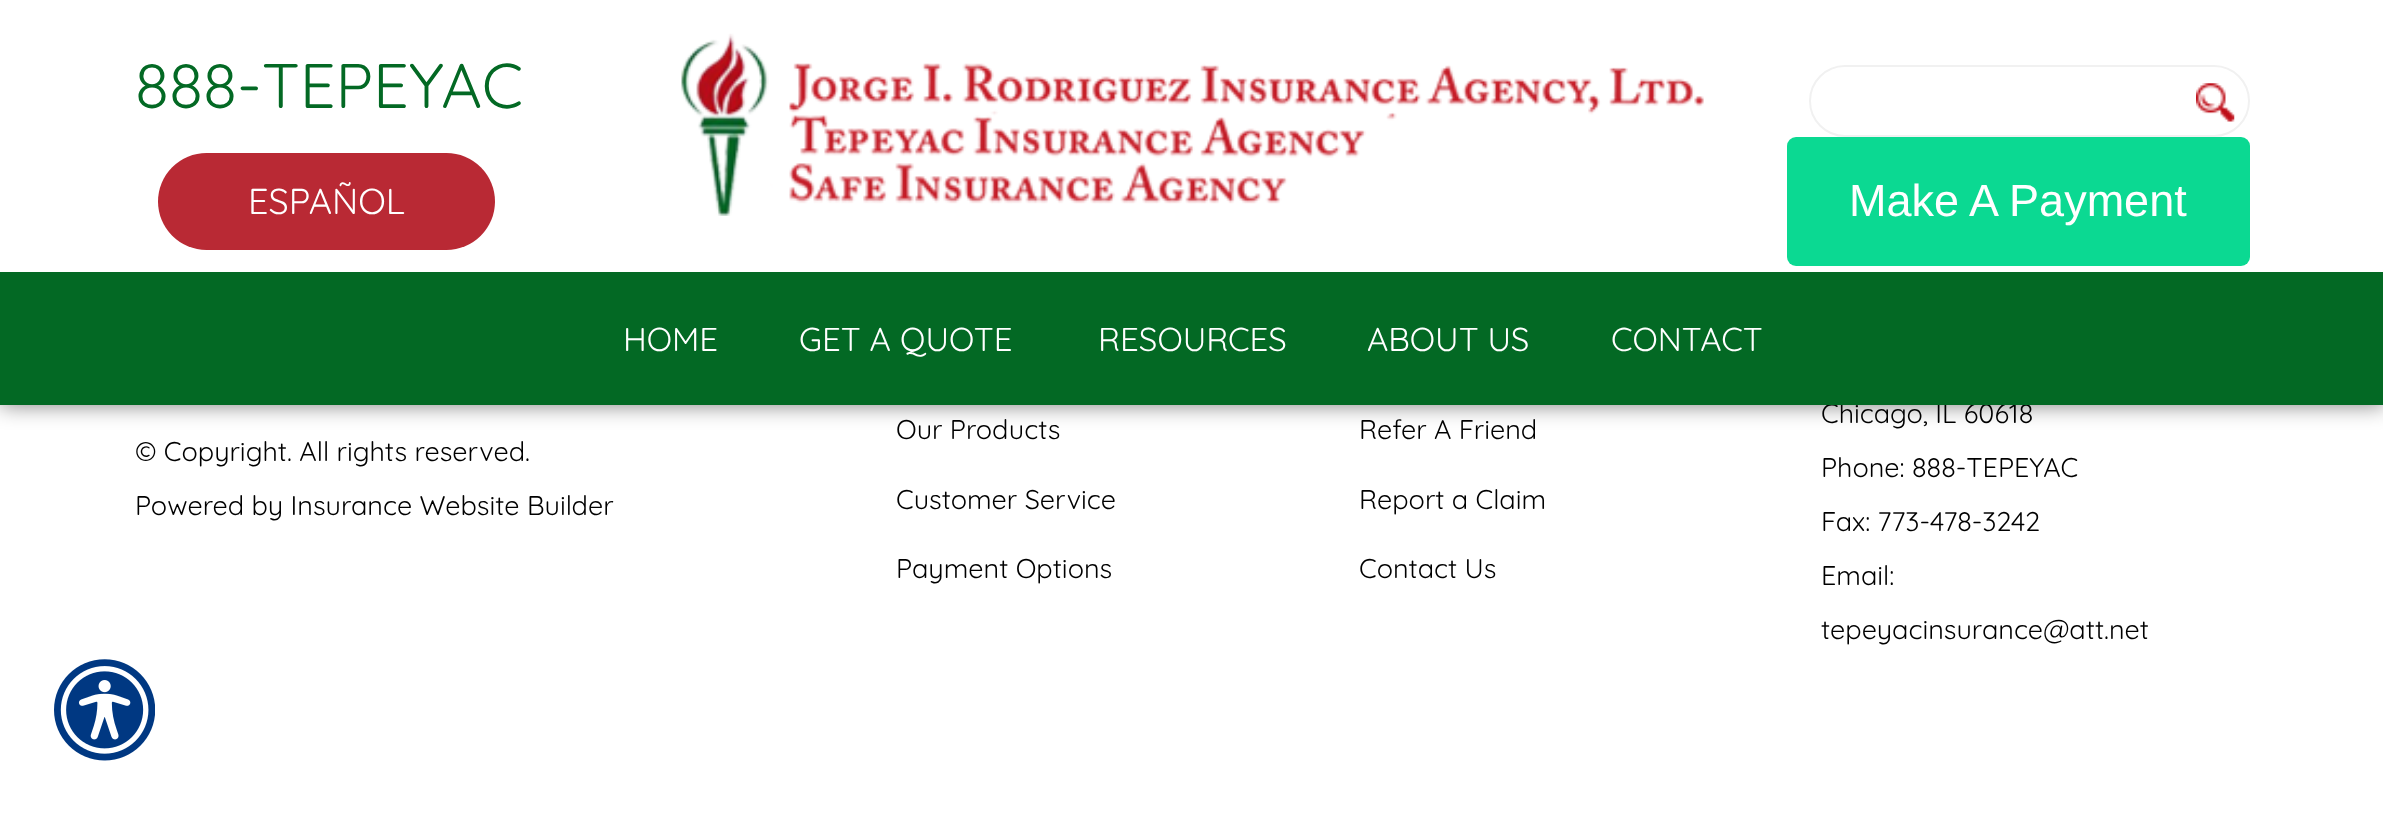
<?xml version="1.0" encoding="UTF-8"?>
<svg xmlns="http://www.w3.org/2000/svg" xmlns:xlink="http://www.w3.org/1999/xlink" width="2383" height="824">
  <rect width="100%" height="100%" fill="#ffffff" />
  <rect width="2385" height="405" fill="#000000" fill-opacity="0.5" filter="blur(11px)" />
  <rect width="2383" height="272" fill="#ffffff" />
  <rect x="158" y="153" width="337" height="97" rx="48.5" fill="#b92934" />
  <image x="681" y="33" width="1023" height="183" xlink:href="image1.png" />
  <rect x="1810" y="66" width="439" height="70" rx="35" fill="none" stroke="#f1f1f1" stroke-width="2" />
  <image x="2196" y="83" width="39" height="39" xlink:href="image2.png" />
  <rect x="1787" y="137" width="463" height="129" rx="9" fill="#0bd992" />
  <image x="54" y="659" width="101" height="102" xlink:href="image3.png" />
  <text x="135" y="108" style="font-family: Quicksand; font-size: 63px; font-weight: 300; fill: #036924">888-TEPEYAC</text>
  <text x="248" y="214" style="font-family: Quicksand; font-size: 36px; font-weight: 300; fill: #ffffff">ESPAÑOL</text>
  <text x="1849" y="216" style="font-family: Liberation Sans; font-size: 45px; fill: #ffffff">Make A Payment</text>
  <text x="135" y="461" style="font-family: Quicksand; font-size: 27px; font-weight: 300; fill: #000000">© Copyright. All rights reserved.</text>
  <text x="135" y="515" style="font-family: Quicksand; font-size: 27px; font-weight: 300; fill: #000000">Powered by Insurance Website Builder</text>
  <text x="896" y="439" style="font-family: Quicksand; font-size: 27px; font-weight: 300; fill: #000000">Our Products</text>
  <text x="896" y="509" style="font-family: Quicksand; font-size: 27px; font-weight: 300; fill: #000000">Customer Service</text>
  <text x="896" y="578" style="font-family: Quicksand; font-size: 27px; font-weight: 300; fill: #000000">Payment Options</text>
  <text x="1359" y="439" style="font-family: Quicksand; font-size: 27px; font-weight: 300; fill: #000000">Refer A Friend</text>
  <text x="1359" y="509" style="font-family: Quicksand; font-size: 27px; font-weight: 300; fill: #000000">Report a Claim</text>
  <text x="1359" y="578" style="font-family: Quicksand; font-size: 27px; font-weight: 300; fill: #000000">Contact Us</text>
  <text x="1821" y="423" style="font-family: Quicksand; font-size: 27px; font-weight: 300; fill: #000000">Chicago, IL 60618</text>
  <rect y="272" width="2383" height="133" fill="#036924" />
  <text x="1611" y="351" style="font-family: Quicksand; font-size: 33px; font-weight: 300; fill: #ffffff">CONTACT</text>
  <text x="1367" y="351" style="font-family: Quicksand; font-size: 33px; font-weight: 300; fill: #ffffff">ABOUT US</text>
  <text x="1098" y="351" style="font-family: Quicksand; font-size: 33px; font-weight: 300; fill: #ffffff">RESOURCES</text>
  <text x="799" y="351" style="font-family: Quicksand; font-size: 33px; font-weight: 300; fill: #ffffff">GET A QUOTE</text>
  <text x="623" y="351" style="font-family: Quicksand; font-size: 33px; font-weight: 300; fill: #ffffff">HOME</text>
  <text x="1821" y="477" style="font-family: Quicksand; font-size: 27px; font-weight: 300; fill: #000000">Phone: 888-TEPEYAC</text>
  <text x="1821" y="531" style="font-family: Quicksand; font-size: 27px; font-weight: 300; fill: #000000">Fax: 773-478-3242</text>
  <text x="1821" y="585" style="font-family: Quicksand; font-size: 27px; font-weight: 300; fill: #000000">Email:</text>
  <text x="1821" y="639" style="font-family: Quicksand; font-size: 27px; font-weight: 300; fill: #000000">tepeyacinsurance@att.net</text>
</svg>
